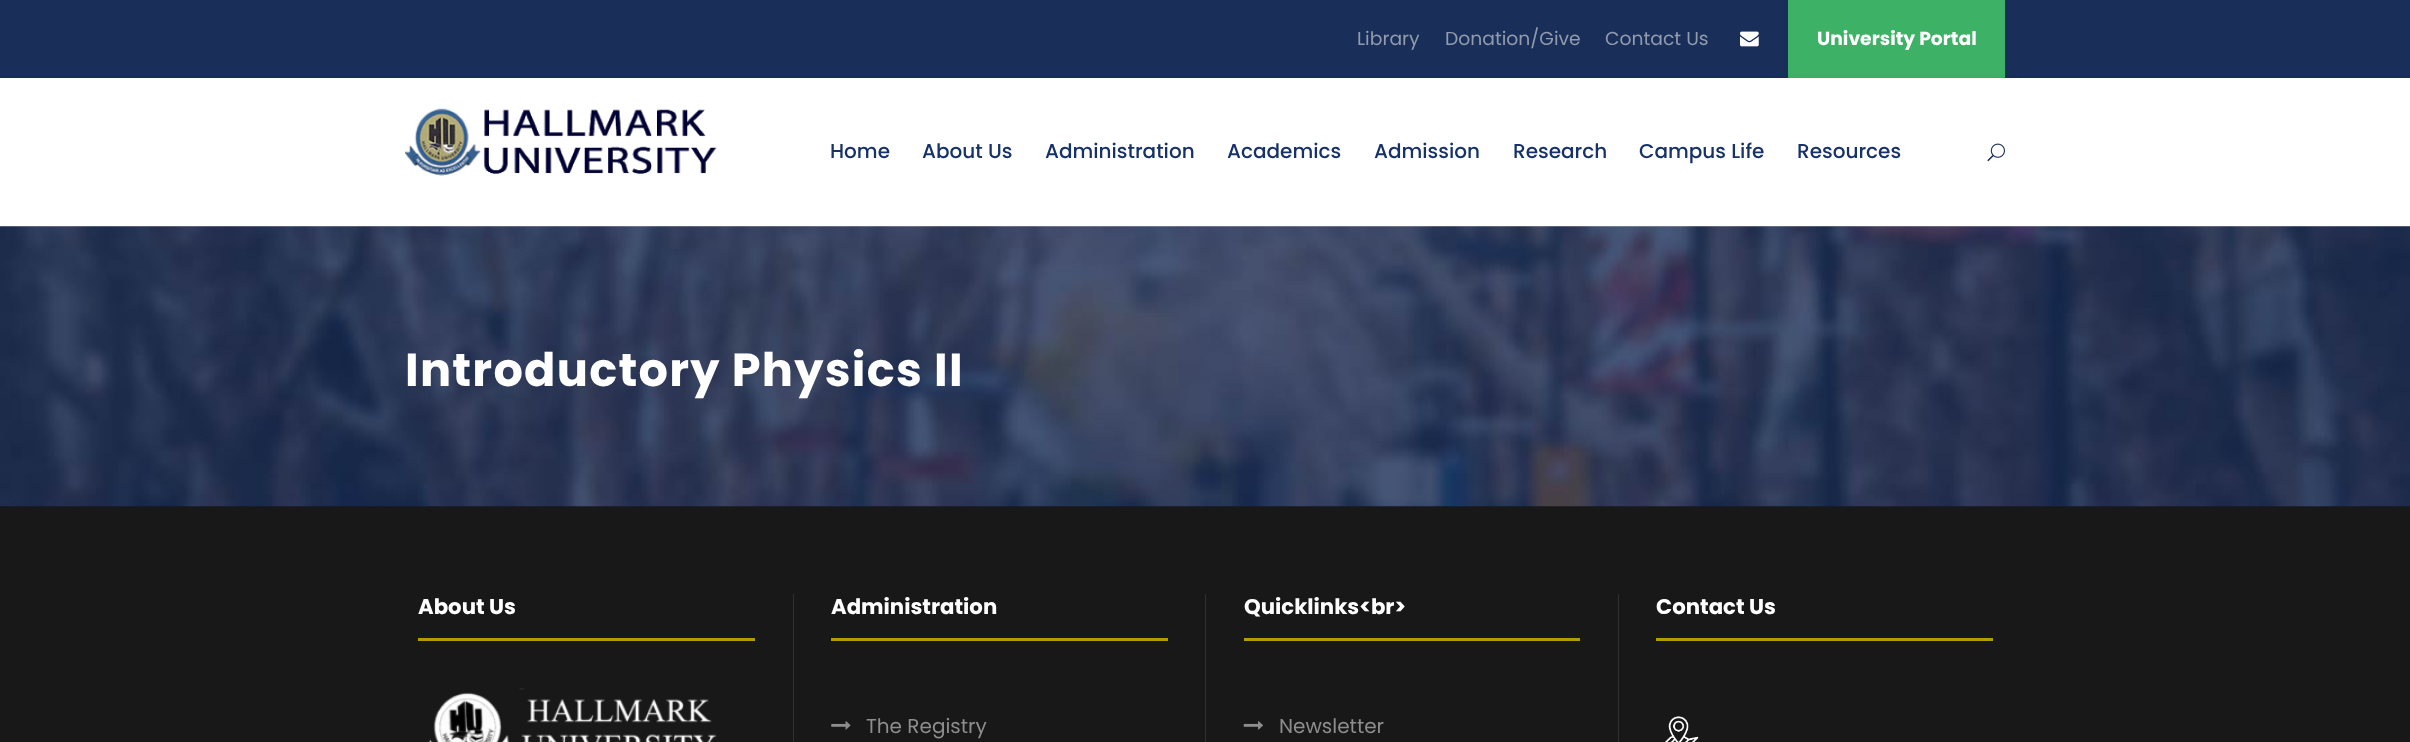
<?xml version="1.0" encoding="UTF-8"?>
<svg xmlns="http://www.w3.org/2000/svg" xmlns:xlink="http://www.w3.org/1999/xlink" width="2410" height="742">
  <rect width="100%" height="100%" fill="#ffffff" />
  <rect width="2410" height="78" fill="#192f59" />
  <image x="1740" y="31" width="19" height="16" xlink:href="image1.png" />
  <rect x="1788" width="217" height="78" fill="#3db166" />
  <rect y="79" width="2410" height="149" fill="#000000" fill-opacity="0.1" filter="blur(2.5px)" />
  <rect y="78" width="2410" height="148" fill="#ffffff" />
  <image x="405" y="108" width="312" height="68" xlink:href="image2.png" />
  <image x="1987" y="143" width="18" height="19" xlink:href="image3.png" />
  <rect y="506" width="2410" height="236" fill="#181818" />
  <image x="0" y="226" width="2410" height="281" xlink:href="image4.png" />
  <rect x="418" y="638" width="337" height="3" fill="#b29c00" />
  <image x="421" y="688" width="296" height="54" xlink:href="image5.png" />
  <rect x="793" y="594" width="1" height="148" fill="#303030" />
  <rect x="831" y="638" width="337" height="3" fill="#b29c00" />
  <image x="831" y="721" width="20" height="9" xlink:href="image6.png" />
  <rect x="1205" y="594" width="1" height="148" fill="#303030" />
  <rect x="1244" y="638" width="336" height="3" fill="#b29c00" />
  <image x="1243" y="721" width="20" height="9" xlink:href="image7.png" />
  <rect x="1618" y="594" width="1" height="148" fill="#303030" />
  <rect x="1656" y="638" width="337" height="3" fill="#b29c00" />
  <image x="1665" y="716" width="34" height="26" xlink:href="image8.png" />
  <text x="1357" y="45" style="font-family: Poppins; font-size: 18.75px; fill: #919bad">Library</text>
  <text x="1445" y="45" style="font-family: Poppins; font-size: 18.75px; fill: #919bad">Donation/Give</text>
  <text x="1605" y="45" style="font-family: Poppins; font-size: 18.75px; fill: #919bad">Contact Us</text>
  <text x="1817" y="45" style="font-family: Poppins; font-size: 18.75px; font-weight: bold; fill: #ffffff">University Portal</text>
  <text x="830" y="158" style="font-family: Poppins; font-size: 20px; font-weight: 500; fill: #163269">Home</text>
  <text x="922" y="158" style="font-family: Poppins; font-size: 20px; font-weight: 500; fill: #163269">About Us</text>
  <text x="1045" y="158" style="font-family: Poppins; font-size: 20px; font-weight: 500; fill: #163269">Administration</text>
  <text x="1227" y="158" style="font-family: Poppins; font-size: 20px; font-weight: 500; fill: #163269">Academics</text>
  <text x="1374" y="158" style="font-family: Poppins; font-size: 20px; font-weight: 500; fill: #163269">Admission</text>
  <text x="1513" y="158" style="font-family: Poppins; font-size: 20px; font-weight: 500; fill: #163269">Research</text>
  <text x="1639" y="158" style="font-family: Poppins; font-size: 20px; font-weight: 500; fill: #163269">Campus Life</text>
  <text x="1797" y="158" style="font-family: Poppins; font-size: 20px; font-weight: 500; fill: #163269">Resources</text>
  <text x="405" y="386" style="font-family: Poppins; font-size: 46.25px; font-weight: bold; letter-spacing: 1.25px; fill: #ffffff">Introductory Physics II</text>
  <text x="418" y="614" style="font-family: Poppins; font-size: 21.25px; font-weight: bold; fill: #ffffff">About Us</text>
  <text x="831" y="614" style="font-family: Poppins; font-size: 21.25px; font-weight: bold; fill: #ffffff">Administration</text>
  <text x="866" y="733" style="font-family: Poppins; font-size: 20px; fill: #8d8d8d">The Registry</text>
  <text x="1244" y="614" style="font-family: Poppins; font-size: 21.25px; font-weight: bold; fill: #ffffff">Quicklinks&lt;br&gt;</text>
  <text x="1279" y="733" style="font-family: Poppins; font-size: 20px; fill: #8d8d8d">Newsletter</text>
  <text x="1656" y="614" style="font-family: Poppins; font-size: 21.25px; font-weight: bold; fill: #ffffff">Contact Us</text>
</svg>
